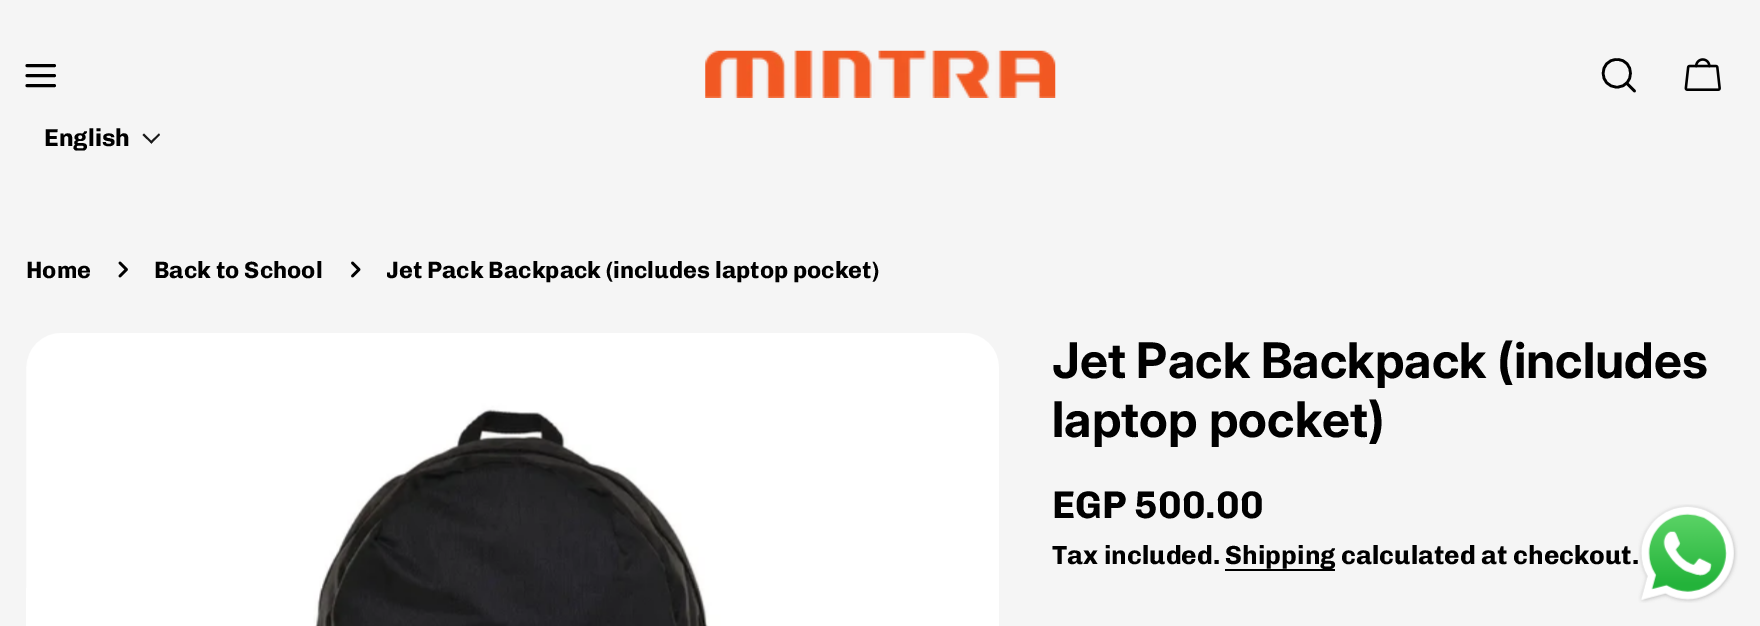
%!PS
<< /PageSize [1760 626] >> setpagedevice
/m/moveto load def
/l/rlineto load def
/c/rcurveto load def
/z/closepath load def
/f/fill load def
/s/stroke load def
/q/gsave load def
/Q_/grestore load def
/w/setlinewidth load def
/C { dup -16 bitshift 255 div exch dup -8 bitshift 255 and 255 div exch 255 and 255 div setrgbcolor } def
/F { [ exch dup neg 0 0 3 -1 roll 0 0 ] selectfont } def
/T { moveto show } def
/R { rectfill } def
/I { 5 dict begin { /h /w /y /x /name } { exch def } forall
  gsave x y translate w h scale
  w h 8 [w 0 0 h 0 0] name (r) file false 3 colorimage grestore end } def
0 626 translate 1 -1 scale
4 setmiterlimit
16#F5F5F5 C
0 0 1760 626 R
16#000000 C
3 w
1 setlinecap
1 setlinejoin
27 75.5 m 27.5 0 l 27 65.5 m 27.5 0 l 27 85.5 m 27.5 0 l s
(1.rgb) 705 50 351 48 I
2.6 w
1617 87 m 18 0 18 -27.5 0 -27.5 c -18.5 0 -18.5 27.5 0 27.5 c z 1626.5 83 m 8 8 l s
(2.rgb) 1684 58 37 33 I
/Chivo-Bold 24.5 F
(English) 44 146 T
16#191919 C
159 133.5 m 1 1.5 l -8.5 8.5 l -1.5 -1.5 l z f
144 133.5 m 8.5 8.5 l -1 1.5 l -9 -8.5 l z f
/Chivo-Bold 23.6 F
16#000000 C
(Home) 26 278 T
120 263 m 6.5 6.5 l -6.5 6.5 l s
(Back to School) 154 278 T
352.5 263 m 6.5 6.5 l -6.5 6.5 l s
q
387 249 493 42 rectclip
(Jet Pack Backpack \(includes laptop pocket\)) 386 278 T
Q_
(3.rgb) 26 333 973 293 I
/Inter-Bold 49 F
(Jet Pack Backpack \(includes) 1052 378 T
(laptop pocket\)) 1052 437 T
/Chivo-Bold 38.5 F
(EGP 500.00) 1052 518 T
/Chivo-Bold 26.25 F
(Tax included. Shipping calculated at checkout.) 1052 564 T
1225 569 110 2 R
(4.rgb) 1638 504 100 99 I
showpage
